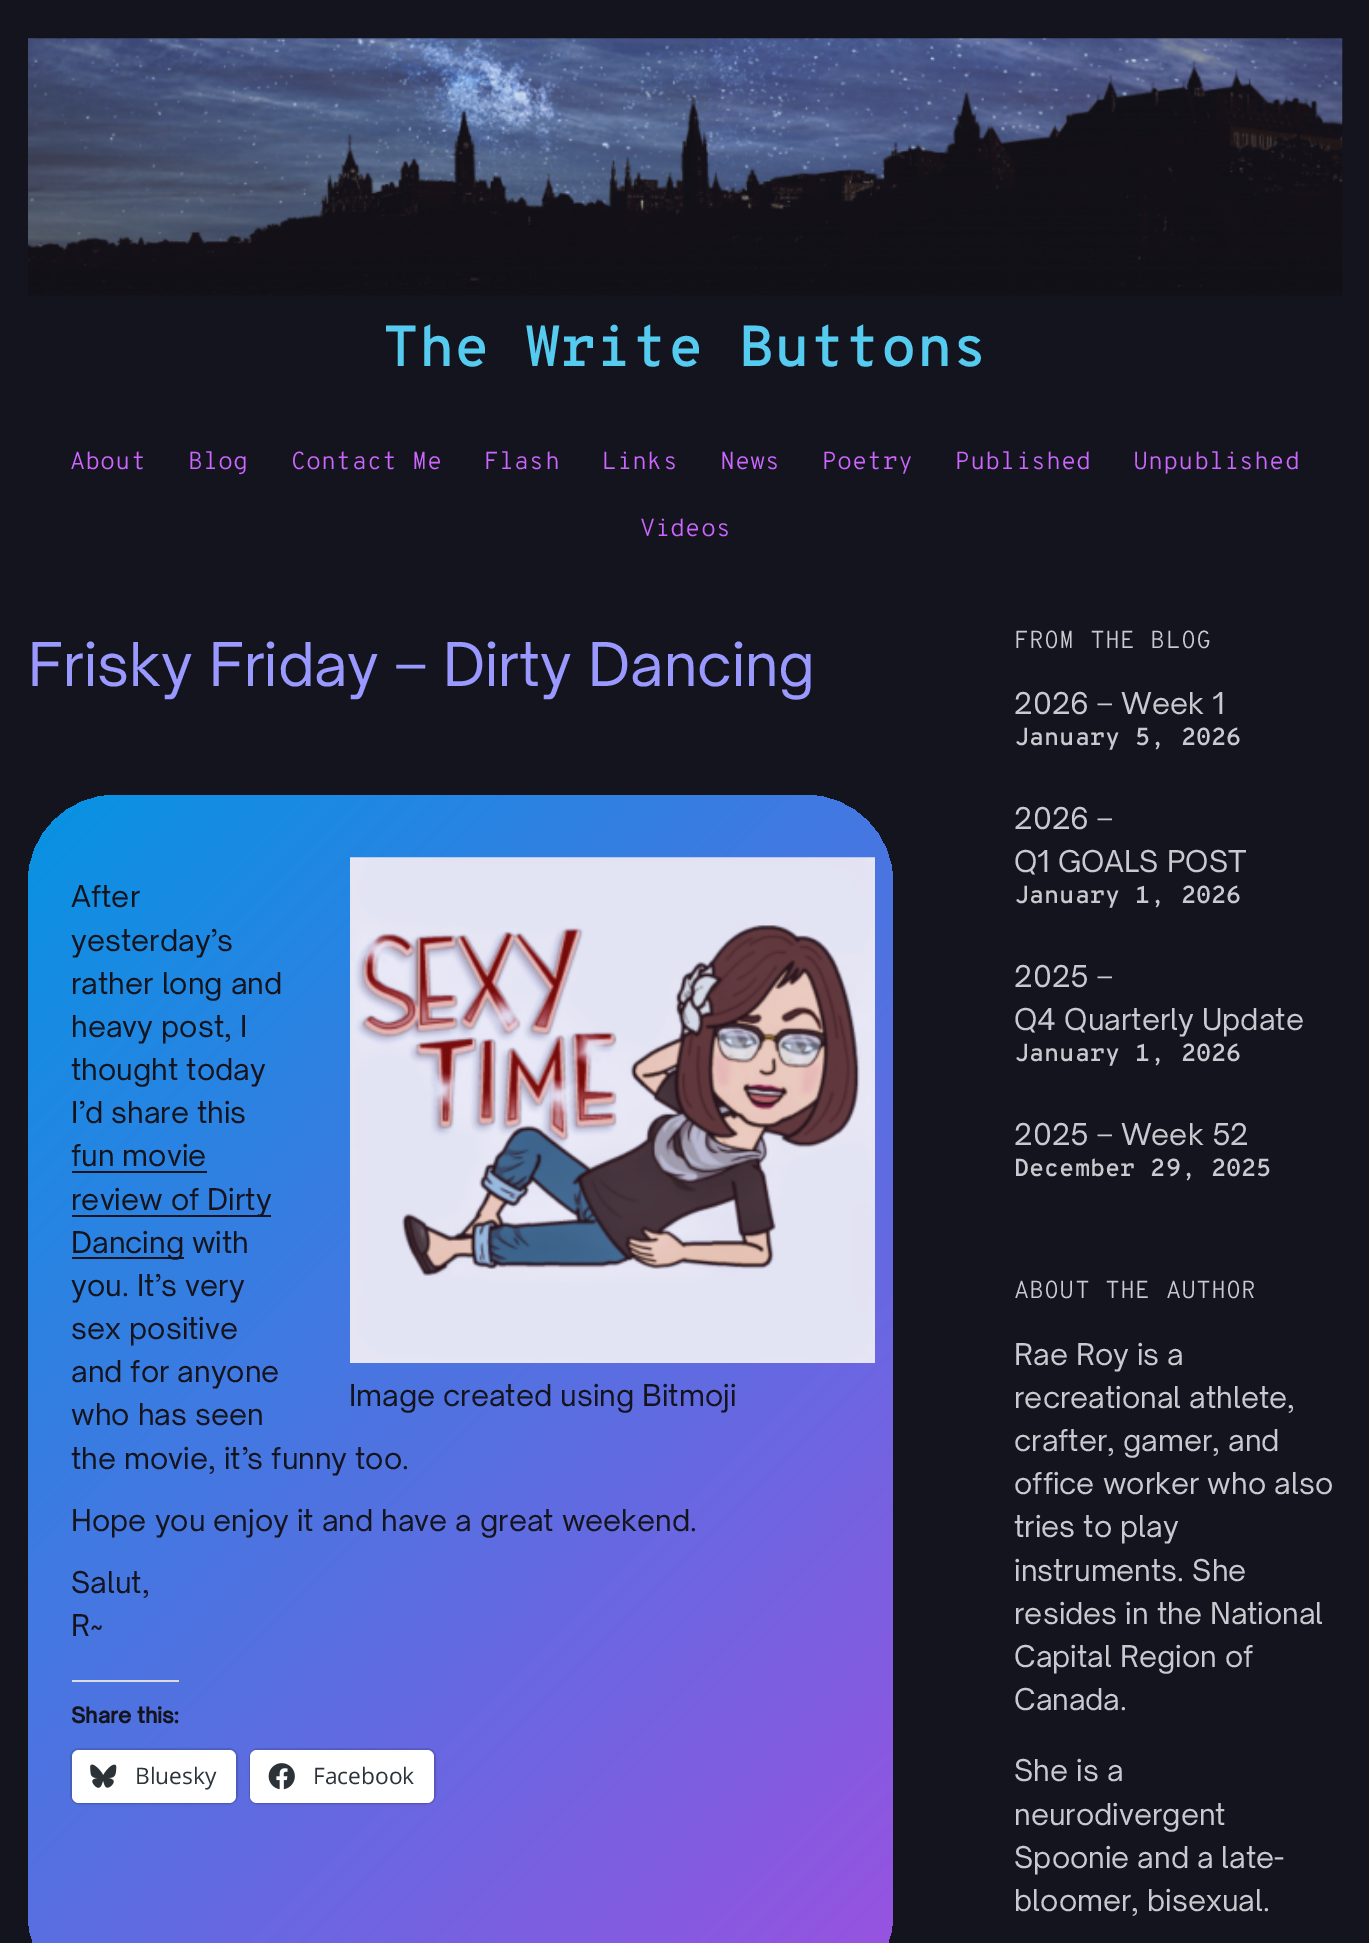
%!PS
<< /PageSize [1369 1943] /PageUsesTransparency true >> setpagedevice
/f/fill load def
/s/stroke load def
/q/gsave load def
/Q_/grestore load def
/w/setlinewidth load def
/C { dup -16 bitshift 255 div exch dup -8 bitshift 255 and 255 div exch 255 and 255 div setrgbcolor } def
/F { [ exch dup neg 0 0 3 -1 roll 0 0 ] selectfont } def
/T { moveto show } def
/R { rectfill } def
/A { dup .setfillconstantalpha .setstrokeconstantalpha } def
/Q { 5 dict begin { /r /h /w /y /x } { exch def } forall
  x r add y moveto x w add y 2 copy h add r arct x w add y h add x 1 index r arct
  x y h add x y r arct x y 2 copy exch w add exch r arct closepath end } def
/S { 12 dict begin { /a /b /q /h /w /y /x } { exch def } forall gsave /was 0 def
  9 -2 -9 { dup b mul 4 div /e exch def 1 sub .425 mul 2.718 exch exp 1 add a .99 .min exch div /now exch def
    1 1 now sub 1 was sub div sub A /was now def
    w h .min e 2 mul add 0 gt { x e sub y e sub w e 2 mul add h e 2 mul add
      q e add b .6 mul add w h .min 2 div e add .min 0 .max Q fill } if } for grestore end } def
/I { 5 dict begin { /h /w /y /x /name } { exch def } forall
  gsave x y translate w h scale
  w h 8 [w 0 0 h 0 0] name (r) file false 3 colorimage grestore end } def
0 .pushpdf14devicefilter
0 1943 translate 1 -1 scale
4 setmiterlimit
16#14141F C
0 0 1369 1943 R
(1.rgb) 28 38 1315 258 I
/OverpassMono-SemiBold 57.75 F
16#56CBF0 C
(The Write Buttons) 383 366 T
/OverpassMono-Light 24.6 F
16#CC66FF C
(About) 70 469 T
(Blog) 188 469 T
(Contact Me) 291 469 T
(Flash) 484 469 T
(Links) 602 469 T
(News) 720 469 T
(Poetry) 822 469 T
(Published) 955 469 T
(Unpublished) 1133 469 T
(Videos) 640 536 T
/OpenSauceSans-Regular 57.75 F
16#9999FF C
(Frisky Friday – Dirty Dancing) 28 686 T
q 28 795 865 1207 88 Q clip newpath
<< /ShadingType 2 /ColorSpace /DeviceRGB /Coords [-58 880 978 1916] /Extend [true true] /Function << /FunctionType 2 /Domain [0 1] /C0 [.024 .576 .89] /C1 [.608 .318 .878] /N 1 >> >> shfill Q_
/OpenSauceSans-Regular 28.75 F
16#14141F C
(After) 71 907 T
(yesterday’s) 71 951 T
(rather long and) 71 994 T
(heavy post, I) 71 1037 T
(thought today) 71 1080 T
(I’d share this) 71 1123 T
(fun movie) 71 1166 T
72 1171 135 2 R
72 1215 199 2 R
(review of Dirty) 71 1210 T
72 1257 112 2 R
(Dancing with) 71 1253 T
(you. It’s very) 71 1296 T
(sex positive) 71 1339 T
(and for anyone) 71 1382 T
(who has seen) 71 1425 T
(the movie, it’s funny too.) 71 1469 T
(2.rgb) 350 857 525 506 I
(Image created using Bitmoji) 349 1406 T
(Hope you enjoy it and have a great weekend.) 71 1531 T
(Salut,) 71 1593 T
(R~) 71 1636 T
16#DCDCDE C
72 1680 107 2 R
/OpenSauceSans-Bold 21 F
16#14141F C
(Share this:) 71 1723 T
0.12 A
16#000000 C
2 w
71 1749 166 54 8 Q s
1 A
72 1752 164 52 7 2 .12 S
16#FFFFFF C
72 1750 164 53 7 Q f
(3.rgb) 90 1764 27 24 I
/OpenSans-Regular 22.75 F
16#2C3338 C
(Bluesky) 135 1784 T
0.12 A
16#000000 C
250 1749 185 54 8 Q s
1 A
250 1752 184 52 7 2 .12 S
16#FFFFFF C
250 1750 184 53 7 Q f
(4.rgb) 268 1763 27 27 I
16#2C3338 C
(Facebook) 313 1784 T
/OverpassMono-Light 24.6 F
16#CAC9CF C
(FROM THE BLOG) 1014 648 T
/OpenSauceSans-Regular 28.75 F
(2026 – Week 1) 1014 714 T
/OverpassMono-SemiBold 24.6 F
(January 5, 2026) 1014 745 T
/OpenSauceSans-Regular 28.75 F
(2026 –) 1014 829 T
(Q1 GOALS POST) 1014 872 T
/OverpassMono-SemiBold 24.6 F
(January 1, 2026) 1014 903 T
/OpenSauceSans-Regular 28.75 F
(2025 –) 1014 987 T
(Q4 Quarterly Update) 1014 1030 T
/OverpassMono-SemiBold 24.6 F
(January 1, 2026) 1014 1061 T
/OpenSauceSans-Regular 28.75 F
(2025 – Week 52) 1014 1145 T
/OverpassMono-SemiBold 24.6 F
(December 29, 2025) 1014 1176 T
/OverpassMono-Light 24.6 F
(ABOUT THE AUTHOR) 1014 1298 T
/OpenSauceSans-Regular 28.75 F
(Rae Roy is a) 1014 1365 T
(recreational athlete,) 1014 1408 T
(crafter, gamer, and) 1014 1451 T
(office worker who also) 1014 1494 T
(tries to play) 1014 1537 T
(instruments. She) 1014 1581 T
(resides in the National) 1014 1624 T
(Capital Region of) 1014 1667 T
(Canada.) 1014 1710 T
(She is a) 1014 1781 T
(neurodivergent) 1014 1825 T
(Spoonie and a late-) 1014 1868 T
(bloomer, bisexual.) 1014 1911 T
.poppdf14devicefilter showpage
